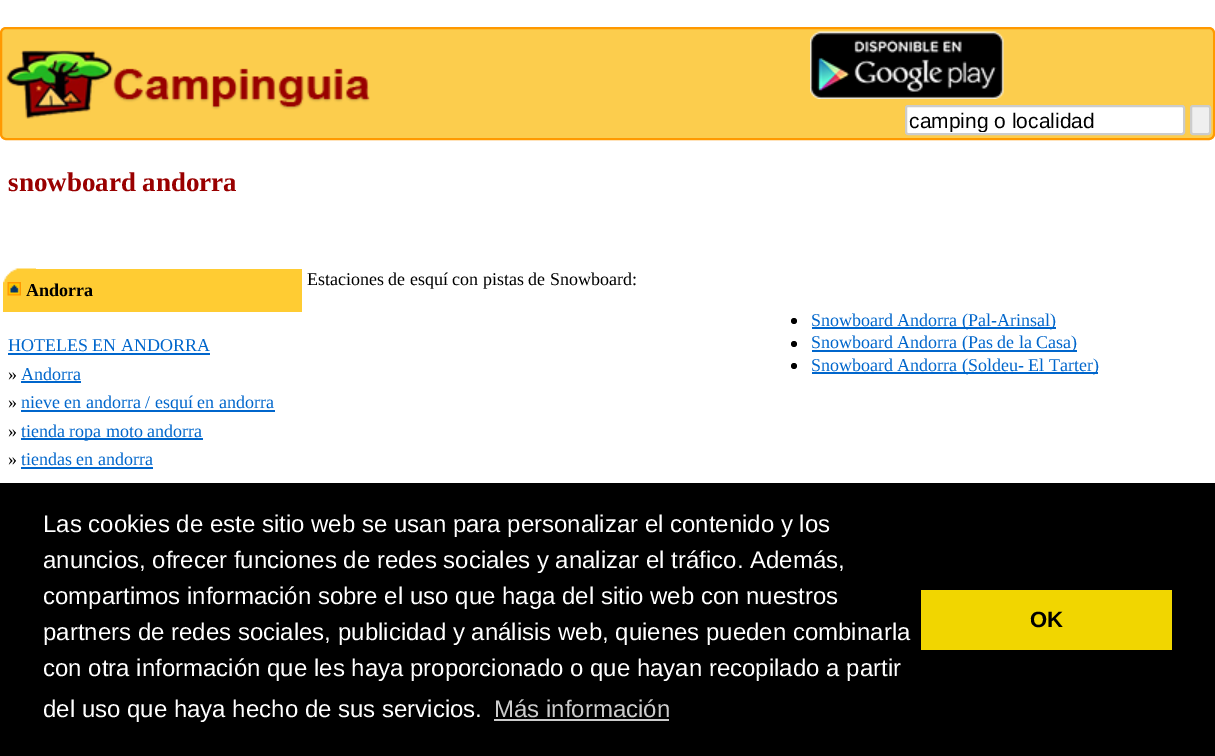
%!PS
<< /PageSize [1215 756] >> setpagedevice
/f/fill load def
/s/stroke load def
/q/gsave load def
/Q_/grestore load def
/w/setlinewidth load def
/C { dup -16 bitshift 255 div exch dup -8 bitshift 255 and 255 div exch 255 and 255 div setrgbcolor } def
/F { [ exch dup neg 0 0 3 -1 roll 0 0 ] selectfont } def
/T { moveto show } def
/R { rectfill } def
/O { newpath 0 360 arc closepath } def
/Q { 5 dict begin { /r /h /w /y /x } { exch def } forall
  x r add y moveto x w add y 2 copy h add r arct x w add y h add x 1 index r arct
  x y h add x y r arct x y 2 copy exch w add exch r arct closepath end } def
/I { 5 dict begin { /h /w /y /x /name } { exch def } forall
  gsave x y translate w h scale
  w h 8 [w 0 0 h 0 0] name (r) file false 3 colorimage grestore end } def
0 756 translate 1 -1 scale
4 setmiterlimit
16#FFFFFF C
0 0 1215 756 R
16#FCCD4D C
1 28 1213 111 5 Q q f Q_
16#FF9900 C
2 w
s
(1.rgb) 5 50 365 69 I
(2.rgb) 810 31 194 68 I
16#FFFFFF C
906 106 278 28 2 Q q f Q_
16#CCCCCC C
s
q
909 108 272 24 rectclip
/LiberationSans-Regular 21 F
16#000000 C
(camping o localidad) 909 128 T
Q_
16#EFEFEF C
1191 106 19 28 2 Q q f Q_
16#CCCCCC C
s
/LiberationSerif-Bold 27 F
16#990000 C
(snowboard andorra) 8 191 T
16#FFCC33 C
3 269 299 43 R
(3.rgb) 3 268 33 15 I
(4.rgb) 7 282 14 14 I
/LiberationSerif-Bold 18 F
16#000000 C
(Andorra) 26 296 T
/LiberationSerif-Regular 18 F
16#0066CC C
(HOTELES EN ANDORRA) 8 351 T
8 353 202 2 R
16#000000 C
(») 8 380 T
16#0066CC C
(Andorra) 21 380 T
21 381 60 2 R
16#000000 C
(») 8 408 T
16#0066CC C
21 410 254 2 R
(nieve en andorra / esquí en andorra) 21 408 T
16#000000 C
(») 8 437 T
16#0066CC C
21 438 182 2 R
(tienda ropa moto andorra) 21 437 T
16#000000 C
(») 8 465 T
16#0066CC C
(tiendas en andorra) 21 465 T
21 467 132 2 R
16#000000 C
(Estaciones de esquí con pistas de Snowboard:) 307 285 T
794 321 3 O f
16#0066CC C
812 327 244 2 R
(Snowboard Andorra \(Pal-Arinsal\)) 811 326 T
16#000000 C
794 344 3 O f
16#0066CC C
812 350 265 2 R
(Snowboard Andorra \(Pas de la Casa\)) 811 348 T
16#000000 C
794 366 3 O f
16#0066CC C
812 372 286 2 R
(Snowboard Andorra \(Soldeu- El Tarter\)) 811 371 T
16#000000 C
0 483 1215 273 R
/LiberationSans-Regular 24 F
16#FFFFFF C
(Las cookies de este sitio web se usan para personalizar el contenido y los) 43 532 T
(anuncios, ofrecer funciones de redes sociales y analizar el tráfico. Además,) 43 568 T
(compartimos información sobre el uso que haga del sitio web con nuestros) 43 604 T
(partners de redes sociales, publicidad y análisis web, quienes pueden combinarla) 43 640 T
(con otra información que les haya proporcionado o que hayan recopilado a partir) 43 676 T
(del uso que haya hecho de sus servicios.) 43 717 T
16#CCCCCC C
(Más información) 494 717 T
494 719 175 2 R
16#F1D600 C
921 590 251 60 R
/LiberationSans-Bold 22 F
16#000000 C
(OK) 1030 627 T
showpage
